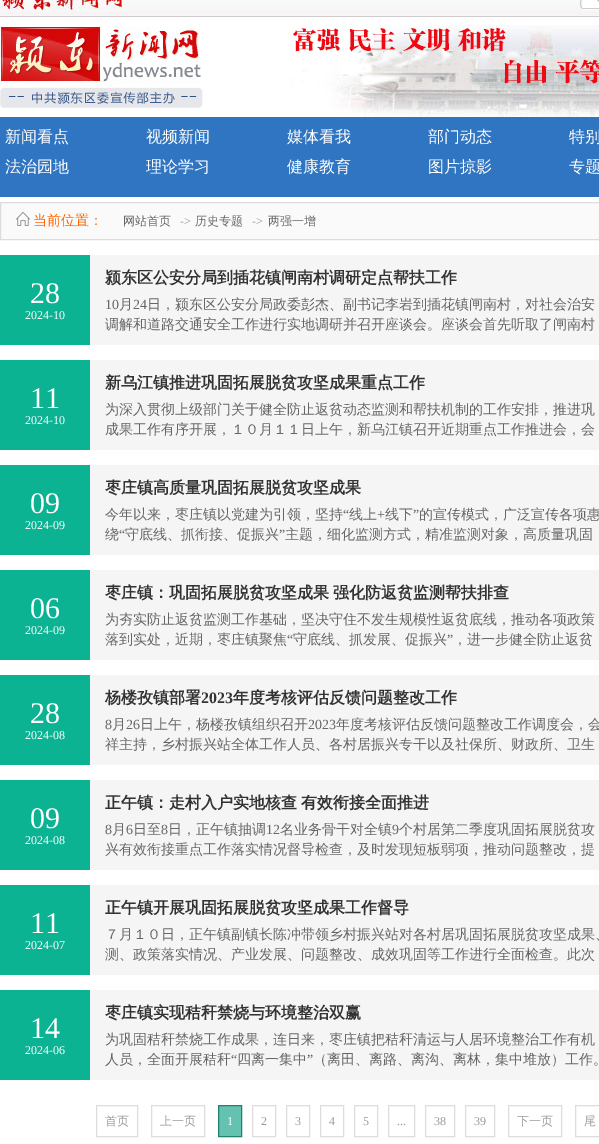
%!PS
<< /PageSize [599 1144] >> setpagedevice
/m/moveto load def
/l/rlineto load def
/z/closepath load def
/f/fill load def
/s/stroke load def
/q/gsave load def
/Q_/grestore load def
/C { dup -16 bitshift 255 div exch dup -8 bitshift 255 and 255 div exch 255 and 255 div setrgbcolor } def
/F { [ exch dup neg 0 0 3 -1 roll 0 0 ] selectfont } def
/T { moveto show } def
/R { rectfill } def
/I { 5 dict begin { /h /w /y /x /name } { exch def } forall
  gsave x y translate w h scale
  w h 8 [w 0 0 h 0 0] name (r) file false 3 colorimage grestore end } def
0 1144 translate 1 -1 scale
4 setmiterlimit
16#FFFFFF C
0 0 599 1144 R
(1.rgb) 0 0 599 17 I
(2.rgb) 0 0 125 11 I
(3.rgb) 580 0 19 10 I
(4.rgb) 289 25 310 92 I
(5.rgb) 0 27 203 81 I
16#3075C2 C
0 117 599 80 R
/WenQuanYiZenHei-Medium 16 F
16#FFFFFF C
(新闻看点) 5 142 T
(视频新闻) 146 142 T
(媒体看我) 287 142 T
(部门动态) 428 142 T
(特别) 569 142 T
(法治园地) 5 172 T
(理论学习) 146 172 T
(健康教育) 287 172 T
(图片掠影) 428 172 T
(专题) 569 172 T
16#FAFAFA C
.5 202.5 m 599 0 l 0 37 l -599 0 l z q f Q_
16#DDDDDD C
s
(6.rgb) 16 212 14 14 I
/WenQuanYiZenHei-Medium 14 F
16#FF6600 C
(当前位置：) 33 225 T
/WenQuanYiZenHei-Medium 12 F
16#666666 C
(网站首页) 123 225 T
/LiberationSerif-Regular 12 F
16#999999 C
(->) 180 225 T
/WenQuanYiZenHei-Medium 12 F
16#666666 C
(历史专题) 195 225 T
/LiberationSerif-Regular 12 F
16#999999 C
(->) 252 225 T
/WenQuanYiZenHei-Medium 12 F
16#666666 C
(两强一增) 268 225 T
16#F5F5F5 C
90 255 509 90 R
16#0BB393 C
0 255 90 90 R
/LiberationSerif-Regular 30 F
16#FFFFFF C
(28) 30 303 T
/LiberationSerif-Regular 12 F
(2024-10) 25 319 T
/WenQuanYiZenHei-Bold 16 F
16#333333 C
(颍东区公安分局到插花镇闸南村调研定点帮扶工作) 105 283 T
/LiberationSerif-Regular 14 F
16#666666 C
(10) 105 309 T
/WenQuanYiZenHei-Medium 14 F
(月) 119 309 T
/LiberationSerif-Regular 14 F
(24) 133 309 T
/WenQuanYiZenHei-Medium 14 F
(日，颍东区公安分局政委彭杰、副书记李岩到插花镇闸南村，对社会治安) 147 309 T
(调解和道路交通安全工作进行实地调研并召开座谈会。座谈会首先听取了闸南村) 105 329 T
16#F5F5F5 C
90 360 509 90 R
16#0BB393 C
0 360 90 90 R
/LiberationSerif-Regular 30 F
16#FFFFFF C
(11) 30 408 T
/LiberationSerif-Regular 12 F
(2024-10) 25 424 T
/WenQuanYiZenHei-Bold 16 F
16#333333 C
(新乌江镇推进巩固拓展脱贫攻坚成果重点工作) 105 388 T
/WenQuanYiZenHei-Medium 14 F
16#666666 C
(为深入贯彻上级部门关于健全防止返贫动态监测和帮扶机制的工作安排，推进巩) 105 414 T
(成果工作有序开展，１０月１１日上午，新乌江镇召开近期重点工作推进会，会) 105 434 T
16#F5F5F5 C
90 465 509 90 R
16#0BB393 C
0 465 90 90 R
/LiberationSerif-Regular 30 F
16#FFFFFF C
(09) 30 513 T
/LiberationSerif-Regular 12 F
(2024-09) 25 529 T
/WenQuanYiZenHei-Bold 16 F
16#333333 C
(枣庄镇高质量巩固拓展脱贫攻坚成果) 105 493 T
/WenQuanYiZenHei-Medium 14 F
16#666666 C
(今年以来，枣庄镇以党建为引领，坚持) 105 519 T
/LiberationSerif-Regular 14 F
(“) 343 519 T
/WenQuanYiZenHei-Medium 14 F
(线上) 349 519 T
/LiberationSerif-Regular 14 F
(+) 377 519 T
/WenQuanYiZenHei-Medium 14 F
(线下) 385 519 T
/LiberationSerif-Regular 14 F
(”) 413 519 T
/WenQuanYiZenHei-Medium 14 F
(的宣传模式，广泛宣传各项惠) 419 519 T
(绕) 105 539 T
/LiberationSerif-Regular 14 F
(“) 119 539 T
/WenQuanYiZenHei-Medium 14 F
(守底线、抓衔接、促振兴) 125 539 T
/LiberationSerif-Regular 14 F
(”) 279 539 T
/WenQuanYiZenHei-Medium 14 F
(主题，细化监测方式，精准监测对象，高质量巩固) 285 539 T
16#F5F5F5 C
90 570 509 90 R
16#0BB393 C
0 570 90 90 R
/LiberationSerif-Regular 30 F
16#FFFFFF C
(06) 30 618 T
/LiberationSerif-Regular 12 F
(2024-09) 25 634 T
/WenQuanYiZenHei-Bold 16 F
16#333333 C
105 598 m -1 0 32 (枣庄镇：巩固拓展脱贫攻坚成果 强化防返贫监测帮扶排查) widthshow
/WenQuanYiZenHei-Medium 14 F
16#666666 C
(为夯实防止返贫监测工作基础，坚决守住不发生规模性返贫底线，推动各项政策) 105 624 T
(落到实处，近期，枣庄镇聚焦) 105 644 T
/LiberationSerif-Regular 14 F
(“) 287 644 T
/WenQuanYiZenHei-Medium 14 F
(守底线、抓发展、促振兴) 293 644 T
/LiberationSerif-Regular 14 F
(”) 447 644 T
/WenQuanYiZenHei-Medium 14 F
(，进一步健全防止返贫) 453 644 T
16#F5F5F5 C
90 675 509 90 R
16#0BB393 C
0 675 90 90 R
/LiberationSerif-Regular 30 F
16#FFFFFF C
(28) 30 723 T
/LiberationSerif-Regular 12 F
(2024-08) 25 739 T
/WenQuanYiZenHei-Bold 16 F
16#333333 C
(杨楼孜镇部署) 105 703 T
/LiberationSerif-Bold 16 F
(2023) 201 703 T
/WenQuanYiZenHei-Bold 16 F
(年度考核评估反馈问题整改工作) 233 703 T
/LiberationSerif-Regular 14 F
16#666666 C
(8) 105 729 T
/WenQuanYiZenHei-Medium 14 F
(月) 112 729 T
/LiberationSerif-Regular 14 F
(26) 126 729 T
/WenQuanYiZenHei-Medium 14 F
(日上午，杨楼孜镇组织召开) 140 729 T
/LiberationSerif-Regular 14 F
(2023) 308 729 T
/WenQuanYiZenHei-Medium 14 F
(年度考核评估反馈问题整改工作调度会，会) 336 729 T
(祥主持，乡村振兴站全体工作人员、各村居振兴专干以及社保所、财政所、卫生) 105 749 T
16#F5F5F5 C
90 780 509 90 R
16#0BB393 C
0 780 90 90 R
/LiberationSerif-Regular 30 F
16#FFFFFF C
(09) 30 828 T
/LiberationSerif-Regular 12 F
(2024-08) 25 844 T
/WenQuanYiZenHei-Bold 16 F
16#333333 C
105 808 m -1 0 32 (正午镇：走村入户实地核查 有效衔接全面推进) widthshow
/LiberationSerif-Regular 14 F
16#666666 C
(8) 105 834 T
/WenQuanYiZenHei-Medium 14 F
(月) 112 834 T
/LiberationSerif-Regular 14 F
(6) 126 834 T
/WenQuanYiZenHei-Medium 14 F
(日至) 133 834 T
/LiberationSerif-Regular 14 F
(8) 161 834 T
/WenQuanYiZenHei-Medium 14 F
(日，正午镇抽调) 168 834 T
/LiberationSerif-Regular 14 F
(12) 266 834 T
/WenQuanYiZenHei-Medium 14 F
(名业务骨干对全镇) 280 834 T
/LiberationSerif-Regular 14 F
(9) 392 834 T
/WenQuanYiZenHei-Medium 14 F
(个村居第二季度巩固拓展脱贫攻) 399 834 T
(兴有效衔接重点工作落实情况督导检查，及时发现短板弱项，推动问题整改，提) 105 854 T
16#F5F5F5 C
90 885 509 90 R
16#0BB393 C
0 885 90 90 R
/LiberationSerif-Regular 30 F
16#FFFFFF C
(11) 30 933 T
/LiberationSerif-Regular 12 F
(2024-07) 25 949 T
/WenQuanYiZenHei-Bold 16 F
16#333333 C
(正午镇开展巩固拓展脱贫攻坚成果工作督导) 105 913 T
/WenQuanYiZenHei-Medium 14 F
16#666666 C
(７月１０日，正午镇副镇长陈冲带领乡村振兴站对各村居巩固拓展脱贫攻坚成果、) 105 939 T
(测、政策落实情况、产业发展、问题整改、成效巩固等工作进行全面检查。此次) 105 959 T
16#F5F5F5 C
90 990 509 90 R
16#0BB393 C
0 990 90 90 R
/LiberationSerif-Regular 30 F
16#FFFFFF C
(14) 30 1038 T
/LiberationSerif-Regular 12 F
(2024-06) 25 1054 T
/WenQuanYiZenHei-Bold 16 F
16#333333 C
(枣庄镇实现秸秆禁烧与环境整治双赢) 105 1018 T
/WenQuanYiZenHei-Medium 14 F
16#666666 C
(为巩固秸秆禁烧工作成果，连日来，枣庄镇把秸秆清运与人居环境整治工作有机) 105 1044 T
(人员，全面开展秸秆) 105 1064 T
/LiberationSerif-Regular 14 F
(“) 231 1064 T
/WenQuanYiZenHei-Medium 14 F
(四离一集中) 237 1064 T
/LiberationSerif-Regular 14 F
(”) 307 1064 T
/WenQuanYiZenHei-Medium 14 F
(（离田、离路、离沟、离林，集中堆放）工作。) 313 1064 T
16#DDDDDD C
96.5 1105.5 41 31 rectstroke
/WenQuanYiZenHei-Medium 12 F
16#999999 C
(首页) 105 1125 T
16#DDDDDD C
151.5 1105.5 53 31 rectstroke
16#999999 C
(上一页) 160 1125 T
16#64C2B0 C
218.5 1105.5 m 23 0 l 0 31 l -23 0 l z q f Q_
16#21806E C
s
/LiberationSerif-Regular 12 F
16#FFFFFF C
(1) 227 1125 T
16#DDDDDD C
252.5 1105.5 23 31 rectstroke
16#999999 C
(2) 261 1125 T
16#DDDDDD C
286.5 1105.5 23 31 rectstroke
16#999999 C
(3) 295 1125 T
16#DDDDDD C
320.5 1105.5 23 31 rectstroke
16#999999 C
(4) 329 1125 T
16#DDDDDD C
354.5 1105.5 23 31 rectstroke
16#999999 C
(5) 363 1125 T
16#DDDDDD C
388.5 1105.5 26 31 rectstroke
16#999999 C
(...) 397 1125 T
16#DDDDDD C
425.5 1105.5 29 31 rectstroke
16#999999 C
(38) 434 1125 T
16#DDDDDD C
465.5 1105.5 29 31 rectstroke
16#999999 C
(39) 474 1125 T
16#DDDDDD C
508.5 1105.5 53 31 rectstroke
/WenQuanYiZenHei-Medium 12 F
16#999999 C
(下一页) 517 1125 T
16#DDDDDD C
575.5 1105.5 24 31 rectstroke
16#999999 C
(尾) 584 1125 T
showpage
